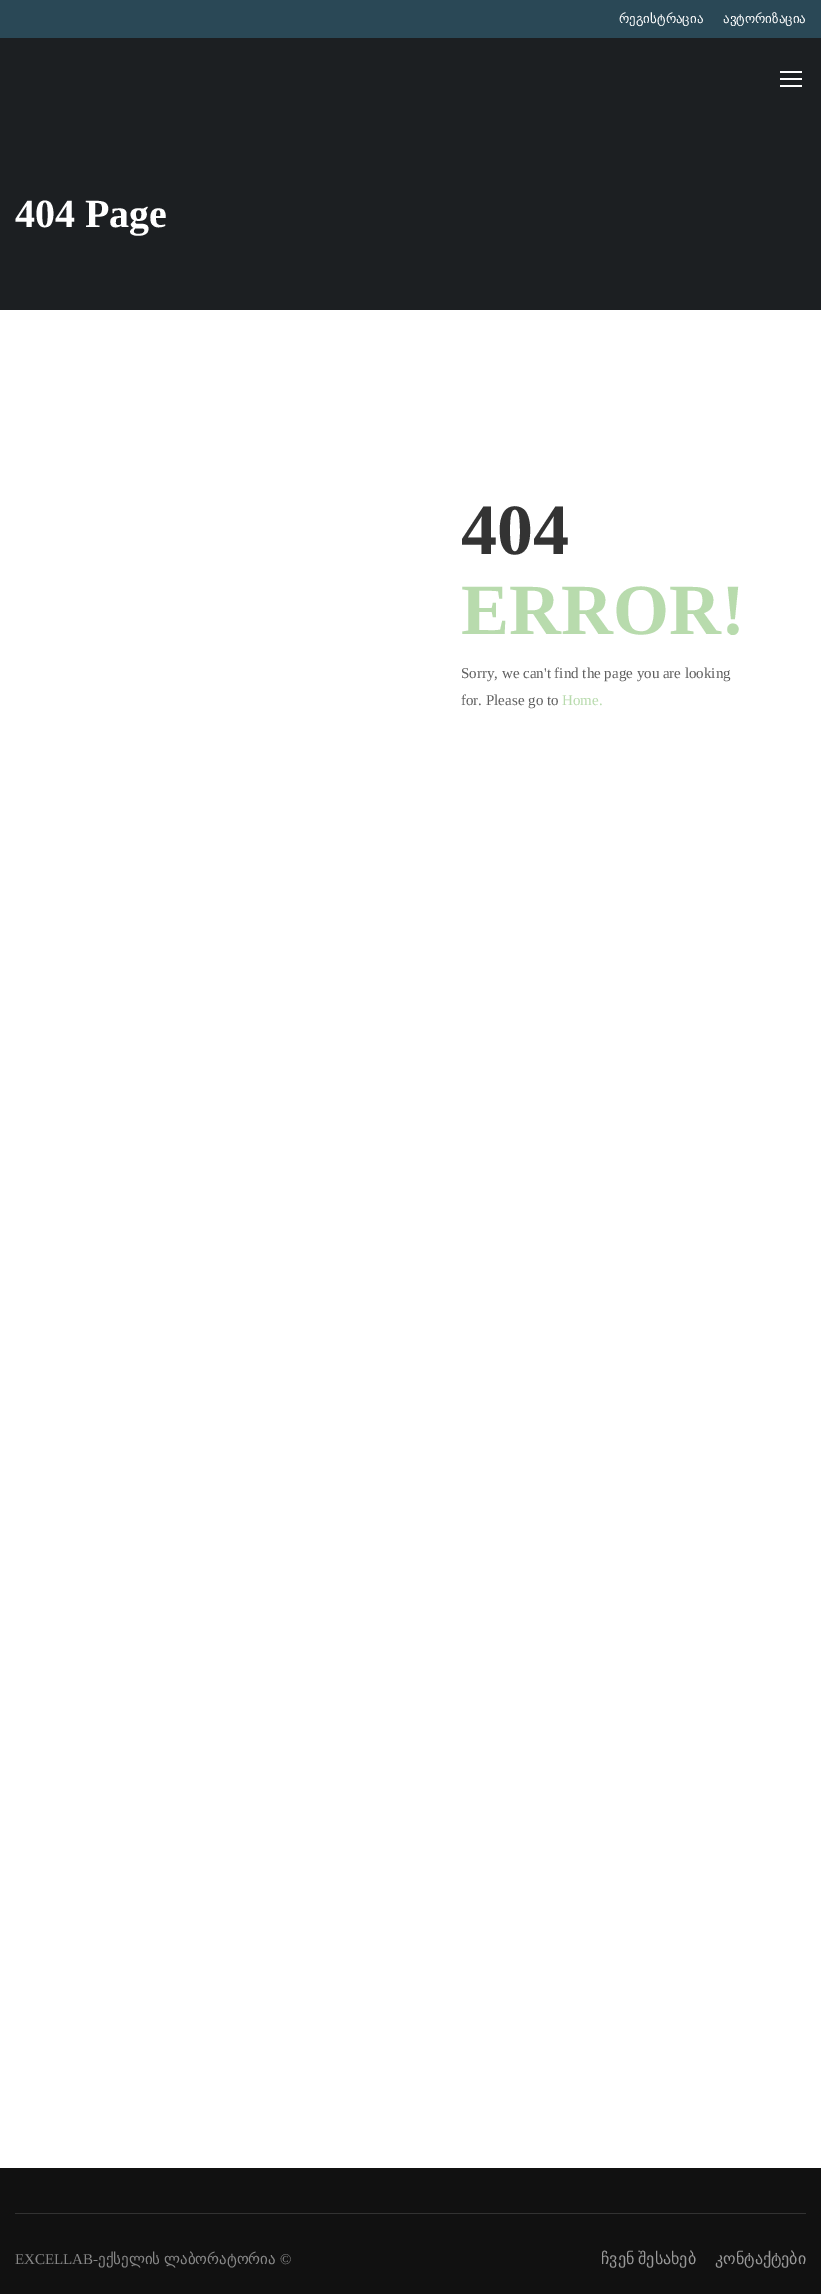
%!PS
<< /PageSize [821 2294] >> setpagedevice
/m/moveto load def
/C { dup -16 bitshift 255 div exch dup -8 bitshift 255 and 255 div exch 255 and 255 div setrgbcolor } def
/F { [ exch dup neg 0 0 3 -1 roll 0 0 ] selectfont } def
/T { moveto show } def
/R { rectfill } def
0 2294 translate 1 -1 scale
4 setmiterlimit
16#FFFFFF C
0 0 821 2294 R
16#2A4856 C
0 0 821 38 R
/DejaVuSans-Regular 13 F
16#FFFFFF C
(რეგისტრაცია) 619 23 T
(ავტორიზაცია) 723 23 T
16#1C1F22 C
0 38 821 272 R
16#FFFFFF C
780 71 22 2 R
780 78 22 2 R
780 85 22 2 R
/LiberationSerif-Bold 40 F
(404 Page) 15 227 T
/LiberationSerif-Bold 72 F
16#333333 C
(404) 461 554 T
16#B8DBAD C
(ERROR!) 461 634 T
/LiberationSerif-Regular 15 F
16#606060 C
(Sorry, we can't find the page you are looking) 461 678 T
(for. Please go to) 461 705 T
16#B8DBAD C
(Home.) 562 705 T
16#111111 C
0 2168 821 126 R
16#323232 C
15 2213 791 1 R
16#878787 C
(EXCELLAB-) 15 2264 T
/DejaVuSans-Regular 15 F
98 2264 m -1 0 32 (ექსელის ლაბორატორია) widthshow
/LiberationSerif-Regular 15 F
(©) 280 2264 T
/DejaVuSans-Regular 16 F
16#999999 C
601 2264 m -1 0 32 (ჩვენ შესახებ) widthshow
(კონტაქტები) 715 2264 T
showpage
